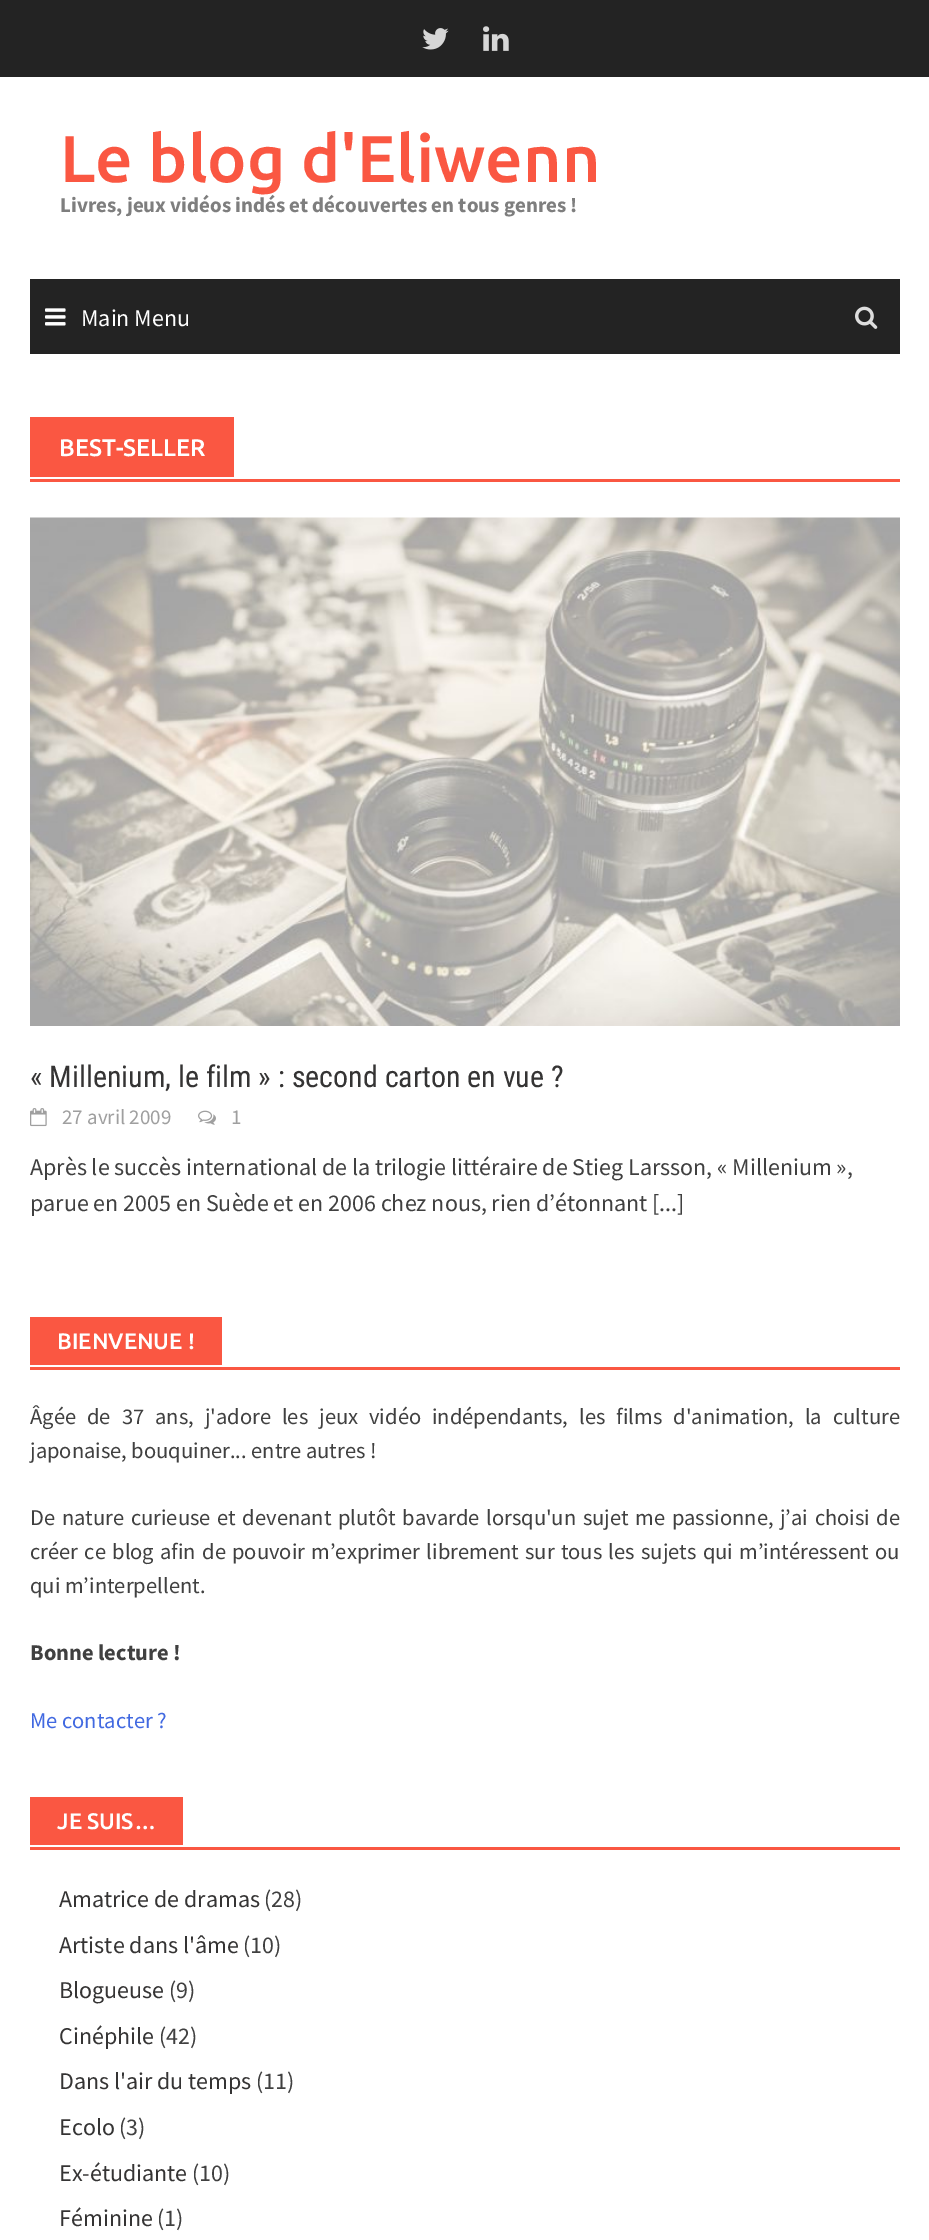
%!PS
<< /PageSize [929 2240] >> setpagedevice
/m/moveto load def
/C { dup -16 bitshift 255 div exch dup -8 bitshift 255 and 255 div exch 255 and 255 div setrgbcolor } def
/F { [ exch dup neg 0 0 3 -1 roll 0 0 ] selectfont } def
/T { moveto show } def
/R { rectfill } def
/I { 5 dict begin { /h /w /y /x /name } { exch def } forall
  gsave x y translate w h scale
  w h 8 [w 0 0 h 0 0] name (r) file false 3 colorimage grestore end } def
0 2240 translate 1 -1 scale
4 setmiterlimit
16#FFFFFF C
0 0 929 2240 R
16#232323 C
0 0 929 77 R
(1.rgb) 422 28 27 22 I
(2.rgb) 483 26 26 25 I
/Ubuntu-Medium 66 F
16#FA5742 C
(Le blog d'Eliwenn) 60 182 T
/SourceSansPro-Bold 21 F
16#7E7E7E C
(Livres, jeux vidéos indés et découvertes en tous genres !) 60 212 T
16#232323 C
30 279 870 75 R
(3.rgb) 45 308 21 18 I
/SourceSansPro-Regular 24 F
16#FFFFFF C
(Main Menu) 81 326 T
(4.rgb) 855 306 23 23 I
16#FA5742 C
30 479 870 3 R
30 417 204 60 R
/Ubuntu-Medium 24 F
16#FFFFFF C
(BEST-SELLER) 59 456 T
(5.rgb) 30 517 870 509 I
/RobotoCondensed-Regular 30 F
16#353434 C
(« Millenium, le film » : second carton en vue ?) 30 1087 T
(6.rgb) 30 1108 17 19 I
/SourceSansPro-Regular 21 F
16#9F9F9F C
(27 avril 2009) 62 1124 T
(7.rgb) 198 1110 18 15 I
(1) 231 1124 T
/SourceSansPro-Regular 24 F
16#404040 C
(Après le succès international de la trilogie littéraire de Stieg Larsson, « Millenium »,) 30 1175 T
(parue en 2005 en Suède et en 2006 chez nous, rien d’étonnant [...]) 30 1211 T
16#FA5742 C
30 1367 870 3 R
30 1317 192 48 R
/Ubuntu-Medium 22.5 F
16#FFFFFF C
(BIENVENUE !) 57 1349 T
/SourceSansPro-Regular 22.5 F
16#404040 C
30 1424 m 6.5 0 32 (Âgée de 37 ans, j'adore les jeux vidéo indépendants, les films d'animation, la culture) widthshow
(japonaise, bouquiner... entre autres !) 30 1458 T
30 1525 m 2.1 0 32 (De nature curieuse et devenant plutôt bavarde lorsqu'un sujet me passionne, j’ai choisi de) widthshow
30 1559 m 1.75 0 32 (créer ce blog afin de pouvoir m’exprimer librement sur tous les sujets qui m’intéressent ou) widthshow
(qui m’interpellent.) 30 1593 T
/SourceSansPro-Bold 22.5 F
(Bonne lecture !) 30 1660 T
/SourceSansPro-Regular 22.5 F
16#4169E1 C
(Me contacter ?) 30 1728 T
16#FA5742 C
30 1847 870 3 R
30 1797 153 48 R
/Ubuntu-Medium 22.5 F
16#FFFFFF C
(JE SUIS…) 57 1829 T
/SourceSansPro-Regular 24 F
16#353434 C
(Amatrice de dramas) 59 1907 T
16#404040 C
(\(28\)) 264 1907 T
16#353434 C
(Artiste dans l'âme) 59 1953 T
16#404040 C
(\(10\)) 243 1953 T
16#353434 C
(Blogueuse) 59 1998 T
16#404040 C
(\(9\)) 169 1998 T
16#353434 C
(Cinéphile) 59 2044 T
16#404040 C
(\(42\)) 159 2044 T
16#353434 C
(Dans l'air du temps) 59 2089 T
16#404040 C
(\(11\)) 256 2089 T
16#353434 C
(Ecolo) 59 2135 T
16#404040 C
(\(3\)) 119 2135 T
16#353434 C
(Ex-étudiante) 59 2181 T
16#404040 C
(\(10\)) 192 2181 T
16#353434 C
(Féminine) 59 2226 T
16#404040 C
(\(1\)) 157 2226 T
showpage
